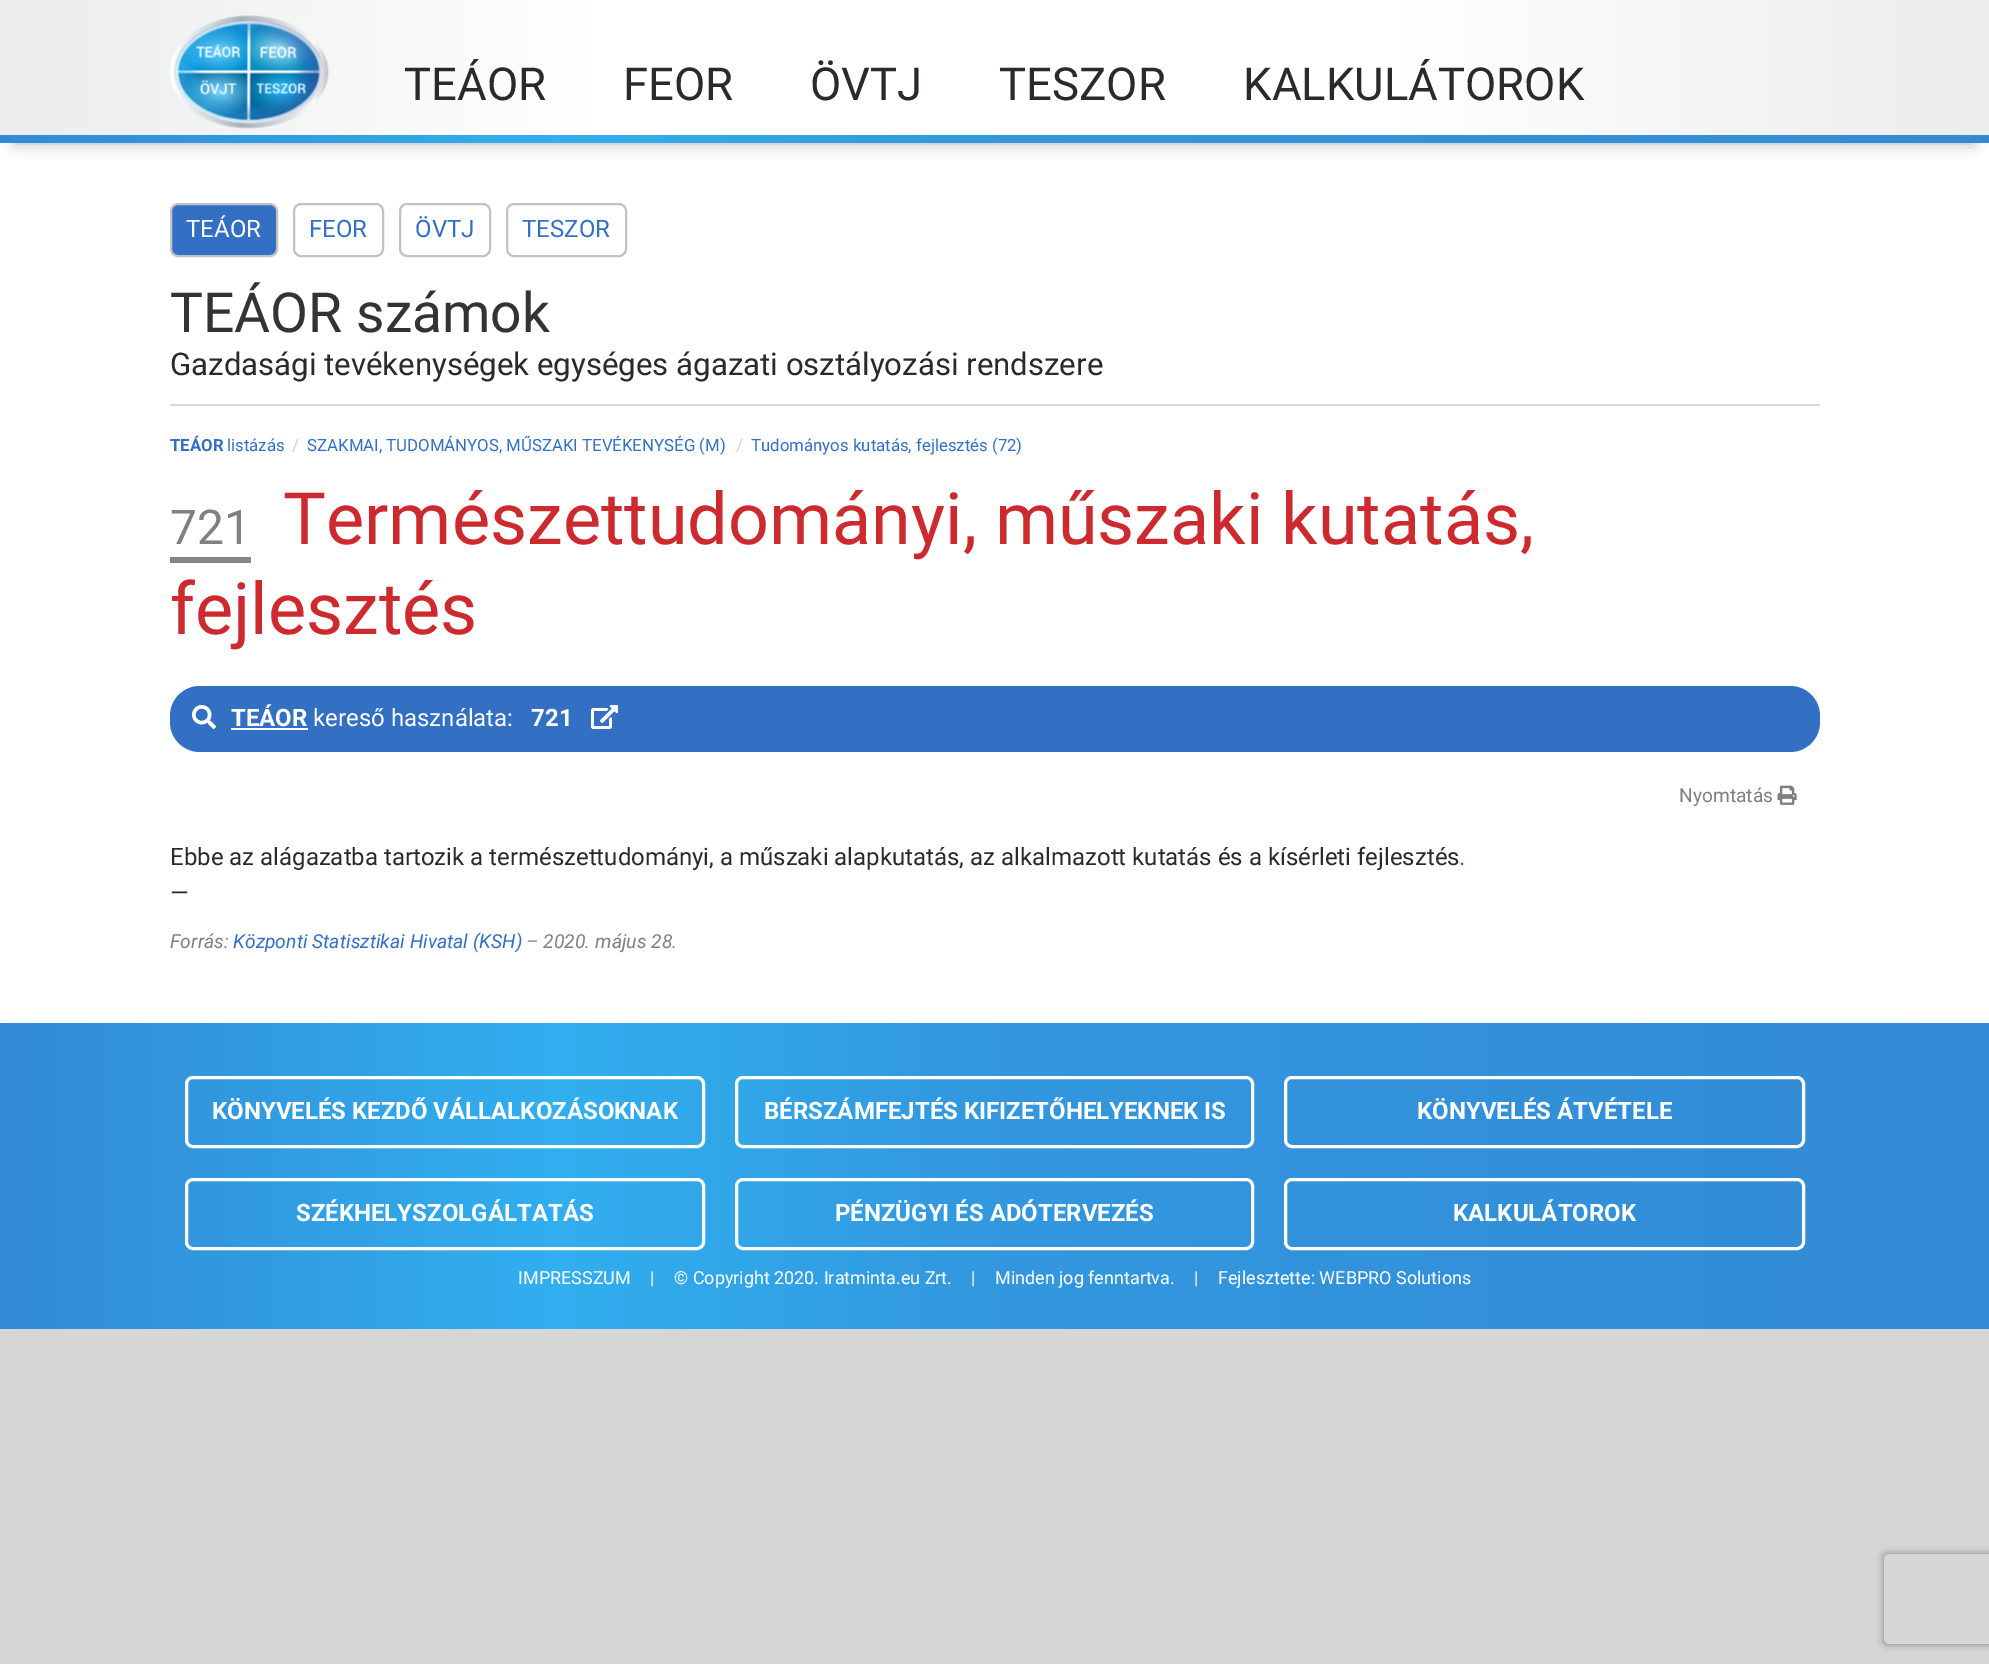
%!PS
<< /PageSize [1989 1664] /PageUsesTransparency true >> setpagedevice
/m/moveto load def
/l/rlineto load def
/c/rcurveto load def
/z/closepath load def
/f/fill load def
/s/stroke load def
/q/gsave load def
/Q_/grestore load def
/w/setlinewidth load def
/C { dup -16 bitshift 255 div exch dup -8 bitshift 255 and 255 div exch 255 and 255 div setrgbcolor } def
/F { [ exch dup neg 0 0 3 -1 roll 0 0 ] selectfont } def
/T { moveto show } def
/R { rectfill } def
/A { dup .setfillconstantalpha .setstrokeconstantalpha } def
/Q { 5 dict begin { /r /h /w /y /x } { exch def } forall
  x r add y moveto x w add y 2 copy h add r arct x w add y h add x 1 index r arct
  x y h add x y r arct x y 2 copy exch w add exch r arct closepath end } def
/S { 12 dict begin { /a /b /q /h /w /y /x } { exch def } forall gsave /was 0 def
  9 -2 -9 { dup b mul 4 div /e exch def 1 sub .425 mul 2.718 exch exp 1 add a .99 .min exch div /now exch def
    1 1 now sub 1 was sub div sub A /was now def
    w h .min e 2 mul add 0 gt { x e sub y e sub w e 2 mul add h e 2 mul add
      q e add b .6 mul add w h .min 2 div e add .min 0 .max Q fill } if } for grestore end } def
/I { 5 dict begin { /h /w /y /x /name } { exch def } forall
  gsave x y translate w h scale
  w h 8 [w 0 0 h 0 0] name (r) file false 3 colorimage grestore end } def
0 .pushpdf14devicefilter
0 1664 translate 1 -1 scale
4 setmiterlimit
16#D7D6D6 C
0 0 1989 1664 R
16#FFFFFF C
0 143 1989 880 R
16#000000 C
15 30 1959 113 0 7.5 .32 S
q 0 0 m 1989 0 l 0 135 l -1989 0 l z clip newpath
<< /ShadingType 2 /ColorSpace /DeviceRGB /Coords [0 71 1989 71] /Extend [true true] /Function << /FunctionType 3 /Domain [0 1] /Functions [<< /FunctionType 2 /Domain [0 1] /C0 [.922 .925 .925] /C1 [1 1 1] /N 1 >> << /FunctionType 2 /Domain [0 1] /C0 [1 1 1] /C1 [1 1 1] /N 1 >> << /FunctionType 2 /Domain [0 1] /C0 [1 1 1] /C1 [.922 .925 .925] /N 1 >>] /Bounds [.3 .7] /Encode [0 1 0 1 0 1] >> >> shfill Q_
(1.rgb) 169 15 160 114 I
/Roboto-Regular 45.5 F
16#2B2A29 C
(TEÁOR) 404 100 T
(FEOR) 623 100 T
(ÖVTJ) 810 100 T
(TESZOR) 999 100 T
(KALKULÁTOROK) 1243 100 T
q 0 135 m 1989 0 l 0 8 l -1989 0 l z clip newpath
<< /ShadingType 2 /ColorSpace /DeviceRGB /Coords [0 139 1989 139] /Extend [true true] /Function << /FunctionType 3 /Domain [0 1] /Functions [<< /FunctionType 2 /Domain [0 1] /C0 [.196 .541 .835] /C1 [.192 .686 .941] /N 1 >> << /FunctionType 2 /Domain [0 1] /C0 [.192 .686 .941] /C1 [.196 .6 .878] /N 1 >> << /FunctionType 2 /Domain [0 1] /C0 [.196 .6 .878] /C1 [.196 .541 .835] /N 1 >>] /Bounds [.28 .48] /Encode [0 1 0 1 0 1] >> >> shfill Q_
16#336FC2 C
171 204 106 52 7 Q q f Q_
16#C2C2C2 C
2 w
s
/Roboto-Regular 24 F
16#FFFFFF C
(TEÁOR) 186 237 T
16#C2C2C2 C
294 204 89 52 7 Q s
16#336FC2 C
(FEOR) 309 237 T
16#C2C2C2 C
400 204 90 52 7 Q s
16#336FC2 C
(ÖVTJ) 415 237 T
16#C2C2C2 C
507 204 119 52 7 Q s
16#336FC2 C
(TESZOR) 522 237 T
/Roboto-Regular 55.25 F
16#333333 C
(TEÁOR számok) 170 332 T
16#D9D9D9 C
170 404 1650 2 R
/Roboto-Regular 31.2 F
16#2B2A29 C
(Gazdasági tevékenységek egységes ágazati osztályozási rendszere) 170 375 T
/Roboto-Bold 16.8 F
16#336FC2 C
(TEÁOR) 170 451 T
/Roboto-Regular 16.8 F
(listázás) 227 451 T
16#CECECE C
(/) 292 451 T
16#336FC2 C
(SZAKMAI, TUDOMÁNYOS, MŰSZAKI TEVÉKENYSÉG \(M\)) 307 451 T
16#CECECE C
(/) 736 451 T
16#336FC2 C
(Tudományos kutatás, fejlesztés \(72\)) 751 451 T
/Roboto-Regular 48 F
16#808080 C
(721) 170 544 T
16#858585 C
170 557 81 6 R
/Roboto-Regular 72 F
16#CD2A30 C
(Természettudományi, műszaki kutatás,) 283 544 T
(fejlesztés) 170 634 T
16#336FC2 C
170 686 1650 66 30 Q f
(2.rgb) 192 705 24 24 I
/Roboto-Bold 24 F
16#FFFFFF C
(TEÁOR) 231 726 T
231 728 77 2 R
/Roboto-Regular 24 F
(kereső használata:) 313 726 T
/Roboto-Bold 24 F
(721) 531 726 T
(3.rgb) 591 705 27 24 I
/Roboto-Regular 19.25 F
16#808080 C
(Nyomtatás) 1679 802 T
(4.rgb) 1777 785 20 20 I
/Roboto-Regular 24 F
16#2B2A29 C
(Ebbe az alágazatba tartozik a természettudományi, a műszaki alapkutatás, az alkalmazott kutatás és a kísérleti fejlesztés) 170 865 T
16#336FC2 C
(.) 1459 865 T
16#2B2A29 C
(—) 170 901 T
/Roboto-Italic 19.25 F
16#808080 C
(Forrás:) 170 948 T
16#336FC2 C
(Központi Statisztikai Hivatal \(KSH\)) 233 948 T
16#808080 C
(– 2020. május 28.) 526 948 T
q 0 1023 m 1989 0 l 0 306 l -1989 0 l z clip newpath
<< /ShadingType 2 /ColorSpace /DeviceRGB /Coords [0 1176 1989 1176] /Extend [true true] /Function << /FunctionType 3 /Domain [0 1] /Functions [<< /FunctionType 2 /Domain [0 1] /C0 [.196 .541 .835] /C1 [.192 .686 .941] /N 1 >> << /FunctionType 2 /Domain [0 1] /C0 [.192 .686 .941] /C1 [.196 .6 .878] /N 1 >> << /FunctionType 2 /Domain [0 1] /C0 [.196 .6 .878] /C1 [.196 .541 .835] /N 1 >>] /Bounds [.28 .48] /Encode [0 1 0 1 0 1] >> >> shfill Q_
16#FFFFFF C
3 w
186.5 1077.5 517 69 6.5 Q s
/Roboto-Bold 24 F
(KÖNYVELÉS KEZDŐ VÁLLALKOZÁSOKNAK) 212 1119 T
736.5 1077.5 516 69 6.5 Q s
(BÉRSZÁMFEJTÉS KIFIZETŐHELYEKNEK IS) 764 1119 T
1285.5 1077.5 518 69 6.5 Q s
(KÖNYVELÉS ÁTVÉTELE) 1417 1119 T
186.5 1179.5 517 69 6.5 Q s
(SZÉKHELYSZOLGÁLTATÁS) 296 1221 T
736.5 1179.5 516 69 6.5 Q s
(PÉNZÜGYI ÉS ADÓTERVEZÉS) 835 1221 T
1285.5 1179.5 518 69 6.5 Q s
(KALKULÁTOROK) 1453 1221 T
/Roboto-Regular 18 F
(IMPRESSZUM) 518 1284 T
(|) 650 1284 T
(© Copyright 2020. Iratminta.eu Zrt.) 674 1284 T
(|) 971 1284 T
(Minden jog fenntartva.) 995 1284 T
(|) 1194 1284 T
(Fejlesztette: WEBPRO Solutions) 1218 1284 T
q
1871 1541 m 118 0 l 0 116 l -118 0 l z 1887 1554 m 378 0 l 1.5 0 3 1.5 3 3 c 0 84 l 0 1.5 -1.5 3 -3 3 c -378 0 l -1.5 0 -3 -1.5 -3 -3 c 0 -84 l 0 -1.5 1.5 -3 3 -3 c z eoclip newpath
16#808080 C
1884 1554 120 90 3 4 1 S
Q_
.poppdf14devicefilter showpage
